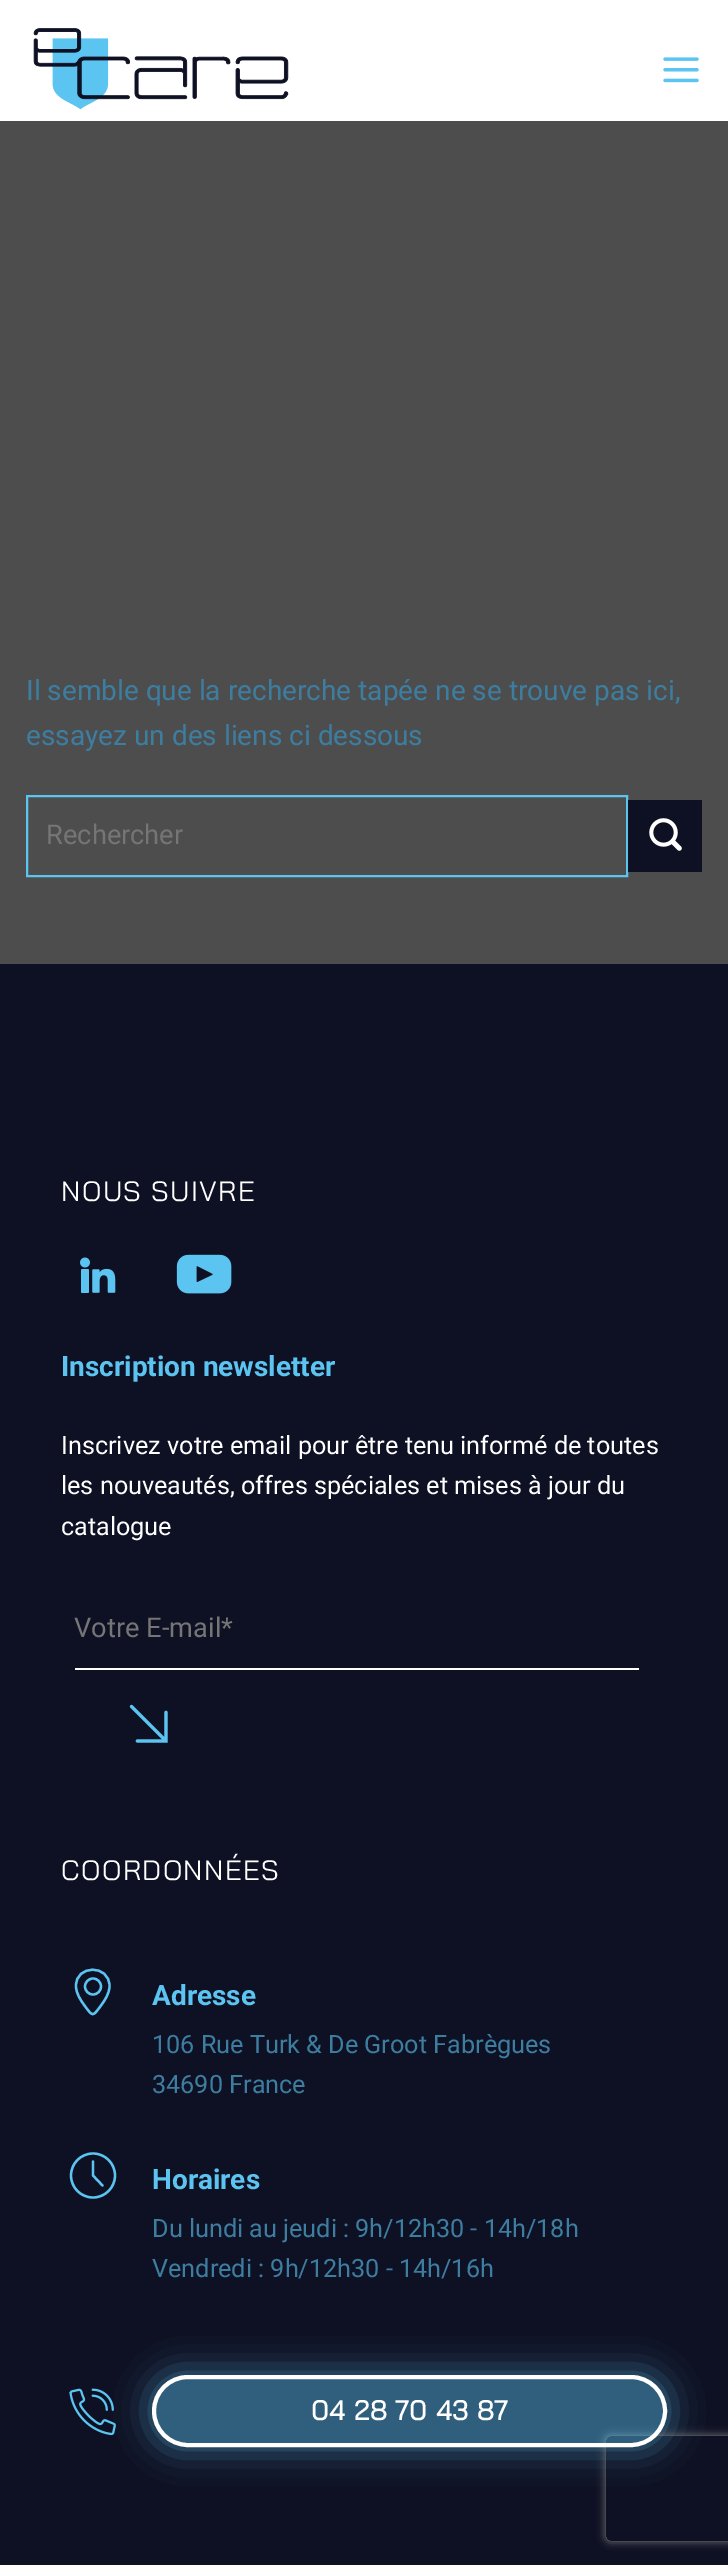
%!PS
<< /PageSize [728 2565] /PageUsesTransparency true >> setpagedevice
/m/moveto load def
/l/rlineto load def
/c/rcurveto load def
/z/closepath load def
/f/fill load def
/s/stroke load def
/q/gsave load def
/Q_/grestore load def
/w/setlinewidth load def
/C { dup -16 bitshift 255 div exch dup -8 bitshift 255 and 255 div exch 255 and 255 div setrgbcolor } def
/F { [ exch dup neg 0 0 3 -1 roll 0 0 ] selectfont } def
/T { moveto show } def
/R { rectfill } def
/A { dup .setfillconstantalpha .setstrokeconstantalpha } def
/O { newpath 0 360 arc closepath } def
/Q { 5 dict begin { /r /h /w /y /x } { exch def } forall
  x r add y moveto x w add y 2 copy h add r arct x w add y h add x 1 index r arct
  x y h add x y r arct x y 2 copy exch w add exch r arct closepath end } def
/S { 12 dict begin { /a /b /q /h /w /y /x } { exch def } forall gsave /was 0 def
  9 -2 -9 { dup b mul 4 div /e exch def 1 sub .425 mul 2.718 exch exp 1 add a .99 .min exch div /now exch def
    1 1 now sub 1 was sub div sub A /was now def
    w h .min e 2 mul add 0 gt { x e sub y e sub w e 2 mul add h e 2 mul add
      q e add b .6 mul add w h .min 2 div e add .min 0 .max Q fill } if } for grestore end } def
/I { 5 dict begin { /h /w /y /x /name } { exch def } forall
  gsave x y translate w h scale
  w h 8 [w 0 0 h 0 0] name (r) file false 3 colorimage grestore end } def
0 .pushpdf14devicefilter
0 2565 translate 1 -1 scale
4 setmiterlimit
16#4D4D4D C
0 0 728 2565 R
16#FFFFFF C
0 0 728 121 R
(1.rgb) 33 28 256 82 I
(2.rgb) 663 57 36 26 I
/Roboto-Regular 28 F
16#3C7DA0 C
(Il semble que la recherche tapée ne se trouve pas ici,) 26 700 T
(essayez un des liens ci dessous) 26 745 T
16#5BC4F1 C
2 w
27 796 600 80 rectstroke
/Roboto-Regular 27.25 F
16#757575 C
(Rechercher) 46 844 T
16#0E1023 C
628 800 74 72 R
(3.rgb) 649 818 33 33 I
0 964 728 1601 R
/BaiJamjuree-Regular 28 F
16#FFFFFF C
61 1201 m 1.4 0 (NOUS SUIVRE) ashow
(4.rgb) 80 1257 36 36 I
(5.rgb) 176 1254 56 40 I
/Roboto-Bold 28 F
16#5BC4F1 C
(Inscription newsletter) 61 1376 T
/Roboto-Regular 25.2 F
16#FFFFFF C
(Inscrivez votre email pour être tenu informé de toutes) 61 1454 T
(les nouveautés, offres spéciales et mises à jour du) 61 1494 T
(catalogue) 61 1535 T
75 1668 564 2 R
/Roboto-Regular 27.25 F
16#757575 C
(Votre E-mail*) 74 1637 T
(6.rgb) 129 1704 39 39 I
/BaiJamjuree-Regular 28 F
16#FFFFFF C
61 1880 m 1.4 0 (COORDONNÉES) ashow
16#5BC4F1 C
2.3 w
1 setlinecap
109.5 1986 m 0 7.5 -4.5 14 -8.5 19.5 c -8.5 11.5 -8 11.5 -16.5 0 c -4 -5.5 -8.5 -12 -8.5 -19.5 c -.5 -21.5 33.5 -22 33.5 0 c z s
0 setlinecap
93 1986.5 8 O s
/Roboto-Bold 28 F
(Adresse) 152 2005 T
/Roboto-Regular 25.2 F
16#3C7DA0 C
(106 Rue Turk & De Groot Fabrègues) 152 2053 T
(34690 France) 152 2093 T
16#5BC4F1 C
93 2175.5 22 O s
1 setlinecap
93 2161.5 m 0 14 l 102.5 2185.5 m -9.5 -10 l s
/Roboto-Bold 28 F
(Horaires) 152 2189 T
/Roboto-Regular 25.2 F
16#3C7DA0 C
(Du lundi au jeudi : 9h/12h30 - 14h/18h) 152 2237 T
(Vendredi : 9h/12h30 - 14h/16h) 152 2277 T
(7.rgb) 69 2388 47 48 I
q
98 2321 m 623 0 l 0 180 l -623 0 l z 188 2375 m 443 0 l 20 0 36 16 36 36 c 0 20 -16 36 -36 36 c -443 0 l -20 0 -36 -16 -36 -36 c 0 -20 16 -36 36 -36 c z eoclip newpath
16#5BC4F0 C
152 2375 515 72 36 17.5 .56 S
Q_
q
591 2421 m 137 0 l 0 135 l -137 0 l z 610 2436 m 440 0 l 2 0 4 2 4 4 c 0 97 l 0 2 -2 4 -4 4 c -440 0 l -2 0 -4 -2 -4 -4 c 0 -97 l 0 -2 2 -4 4 -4 c z eoclip newpath
16#808080 C
606 2436 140 105 4 4.5 1 S
Q_
0.44 A
16#5BC4F1 C
154 2377 511 68 34 Q f
1 A
16#FFFFFF C
4 w
0 setlinecap
154 2377 511 68 34 Q s
/BaiJamjuree-Bold 27.25 F
311 2420 m .75 0 (04 28 70 43 87) ashow
.poppdf14devicefilter showpage
